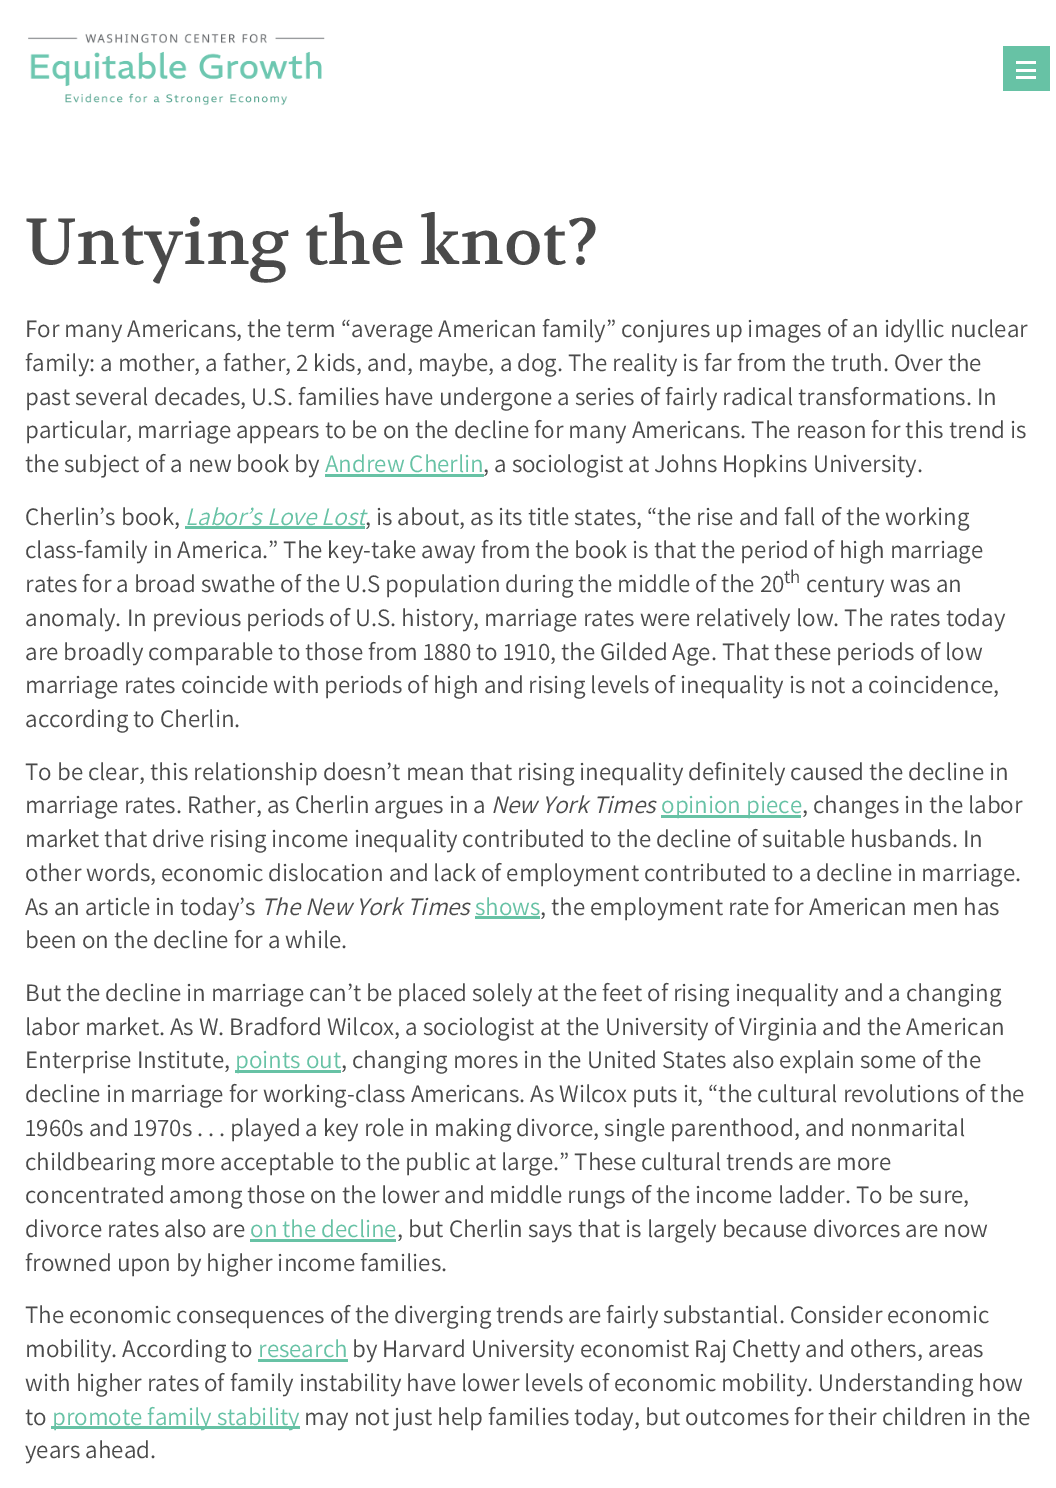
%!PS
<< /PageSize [1056 1488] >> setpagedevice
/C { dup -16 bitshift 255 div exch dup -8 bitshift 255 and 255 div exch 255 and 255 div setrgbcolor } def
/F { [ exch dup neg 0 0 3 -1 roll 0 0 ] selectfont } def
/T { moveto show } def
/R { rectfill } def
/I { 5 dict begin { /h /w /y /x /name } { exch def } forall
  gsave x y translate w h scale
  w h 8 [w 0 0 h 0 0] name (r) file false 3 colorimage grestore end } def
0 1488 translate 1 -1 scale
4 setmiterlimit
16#FFFFFF C
0 0 1056 1488 R
(1.rgb) 28 33 297 73 I
16#67C2A5 C
1003 46 47 45 R
16#FFFFFF C
1016 61 20 3 R
1016 69 20 3 R
1016 76 20 3 R
/Volkhov-Regular 65 F
16#4A4A4A C
(Untying the knot?) 25 264 T
/Assistant-Regular 25 F
(For many Americans, the term “average American family” conjures up images of an idyllic nuclear) 25 337 T
(family: a mother, a father, 2 kids, and, maybe, a dog. The reality is far from the truth. Over the) 25 371 T
(past several decades, U.S. families have undergone a series of fairly radical transformations. In) 25 405 T
(particular, marriage appears to be on the decline for many Americans. The reason for this trend is) 25 438 T
(the subject of a new book by) 25 472 T
16#67C2A5 C
(Andrew Cherlin) 325 472 T
325 474 159 3 R
16#4A4A4A C
(, a sociologist at Johns Hopkins University.) 483 472 T
(Cherlin’s book,) 25 525 T
/Assistant-Italic 25 F
16#67C2A5 C
(Labor’s Love Lost) 185 525 T
185 526 180 3 R
/Assistant-Regular 25 F
16#4A4A4A C
(, is about, as its title states, “the rise and fall of the working) 365 525 T
(class-family in America.” The key-take away from the book is that the period of high marriage) 25 558 T
(rates for a broad swathe of the U.S population during the middle of the 20) 25 592 T
/Assistant-Regular 19 F
(th) 784 583 T
/Assistant-Regular 25 F
(century was an) 806 592 T
(anomaly. In previous periods of U.S. history, marriage rates were relatively low. The rates today) 25 626 T
(are broadly comparable to those from 1880 to 1910, the Gilded Age. That these periods of low) 25 660 T
(marriage rates coincide with periods of high and rising levels of inequality is not a coincidence,) 25 693 T
(according to Cherlin.) 25 727 T
(To be clear, this relationship doesn’t mean that rising inequality definitely caused the decline in) 25 780 T
(marriage rates. Rather, as Cherlin argues in a) 25 813 T
/Assistant-Italic 25 F
(New York Times) 491 813 T
16#67C2A5 C
661 815 140 3 R
/Assistant-Regular 25 F
(opinion piece) 661 813 T
16#4A4A4A C
(, changes in the labor) 802 813 T
(market that drive rising income inequality contributed to the decline of suitable husbands. In) 25 847 T
(other words, economic dislocation and lack of employment contributed to a decline in marriage.) 25 881 T
(As an article in today’s) 25 915 T
/Assistant-Italic 25 F
(The New York Times) 261 915 T
/Assistant-Regular 25 F
16#67C2A5 C
(shows) 475 915 T
475 916 65 3 R
16#4A4A4A C
(, the employment rate for American men has) 540 915 T
(been on the decline for a while.) 25 948 T
(But the decline in marriage can’t be placed solely at the feet of rising inequality and a changing) 25 1001 T
(labor market. As W. Bradford Wilcox, a sociologist at the University of Virginia and the American) 25 1035 T
(Enterprise Institute,) 25 1068 T
16#67C2A5 C
235 1070 106 3 R
(points out) 235 1068 T
16#4A4A4A C
(, changing mores in the United States also explain some of the) 341 1068 T
(decline in marriage for working-class Americans. As Wilcox puts it, “the cultural revolutions of the) 25 1102 T
(1960s and 1970s . . . played a key role in making divorce, single parenthood, and nonmarital) 25 1136 T
(childbearing more acceptable to the public at large.” These cultural trends are more) 25 1170 T
(concentrated among those on the lower and middle rungs of the income ladder. To be sure,) 25 1203 T
(divorce rates also are) 25 1237 T
16#67C2A5 C
(on the decline) 250 1237 T
250 1239 146 3 R
16#4A4A4A C
(, but Cherlin says that is largely because divorces are now) 397 1237 T
(frowned upon by higher income families.) 25 1271 T
(The economic consequences of the diverging trends are fairly substantial. Consider economic) 25 1323 T
(mobility. According to) 25 1357 T
16#67C2A5 C
(research) 258 1357 T
258 1359 90 3 R
16#4A4A4A C
(by Harvard University economist Raj Chetty and others, areas) 352 1357 T
(with higher rates of family instability have lower levels of economic mobility. Understanding how) 25 1391 T
(to) 25 1425 T
16#67C2A5 C
51 1426 249 3 R
(promote family stability) 52 1425 T
16#4A4A4A C
(may not just help families today, but outcomes for their children in the) 304 1425 T
(years ahead.) 25 1458 T
showpage
